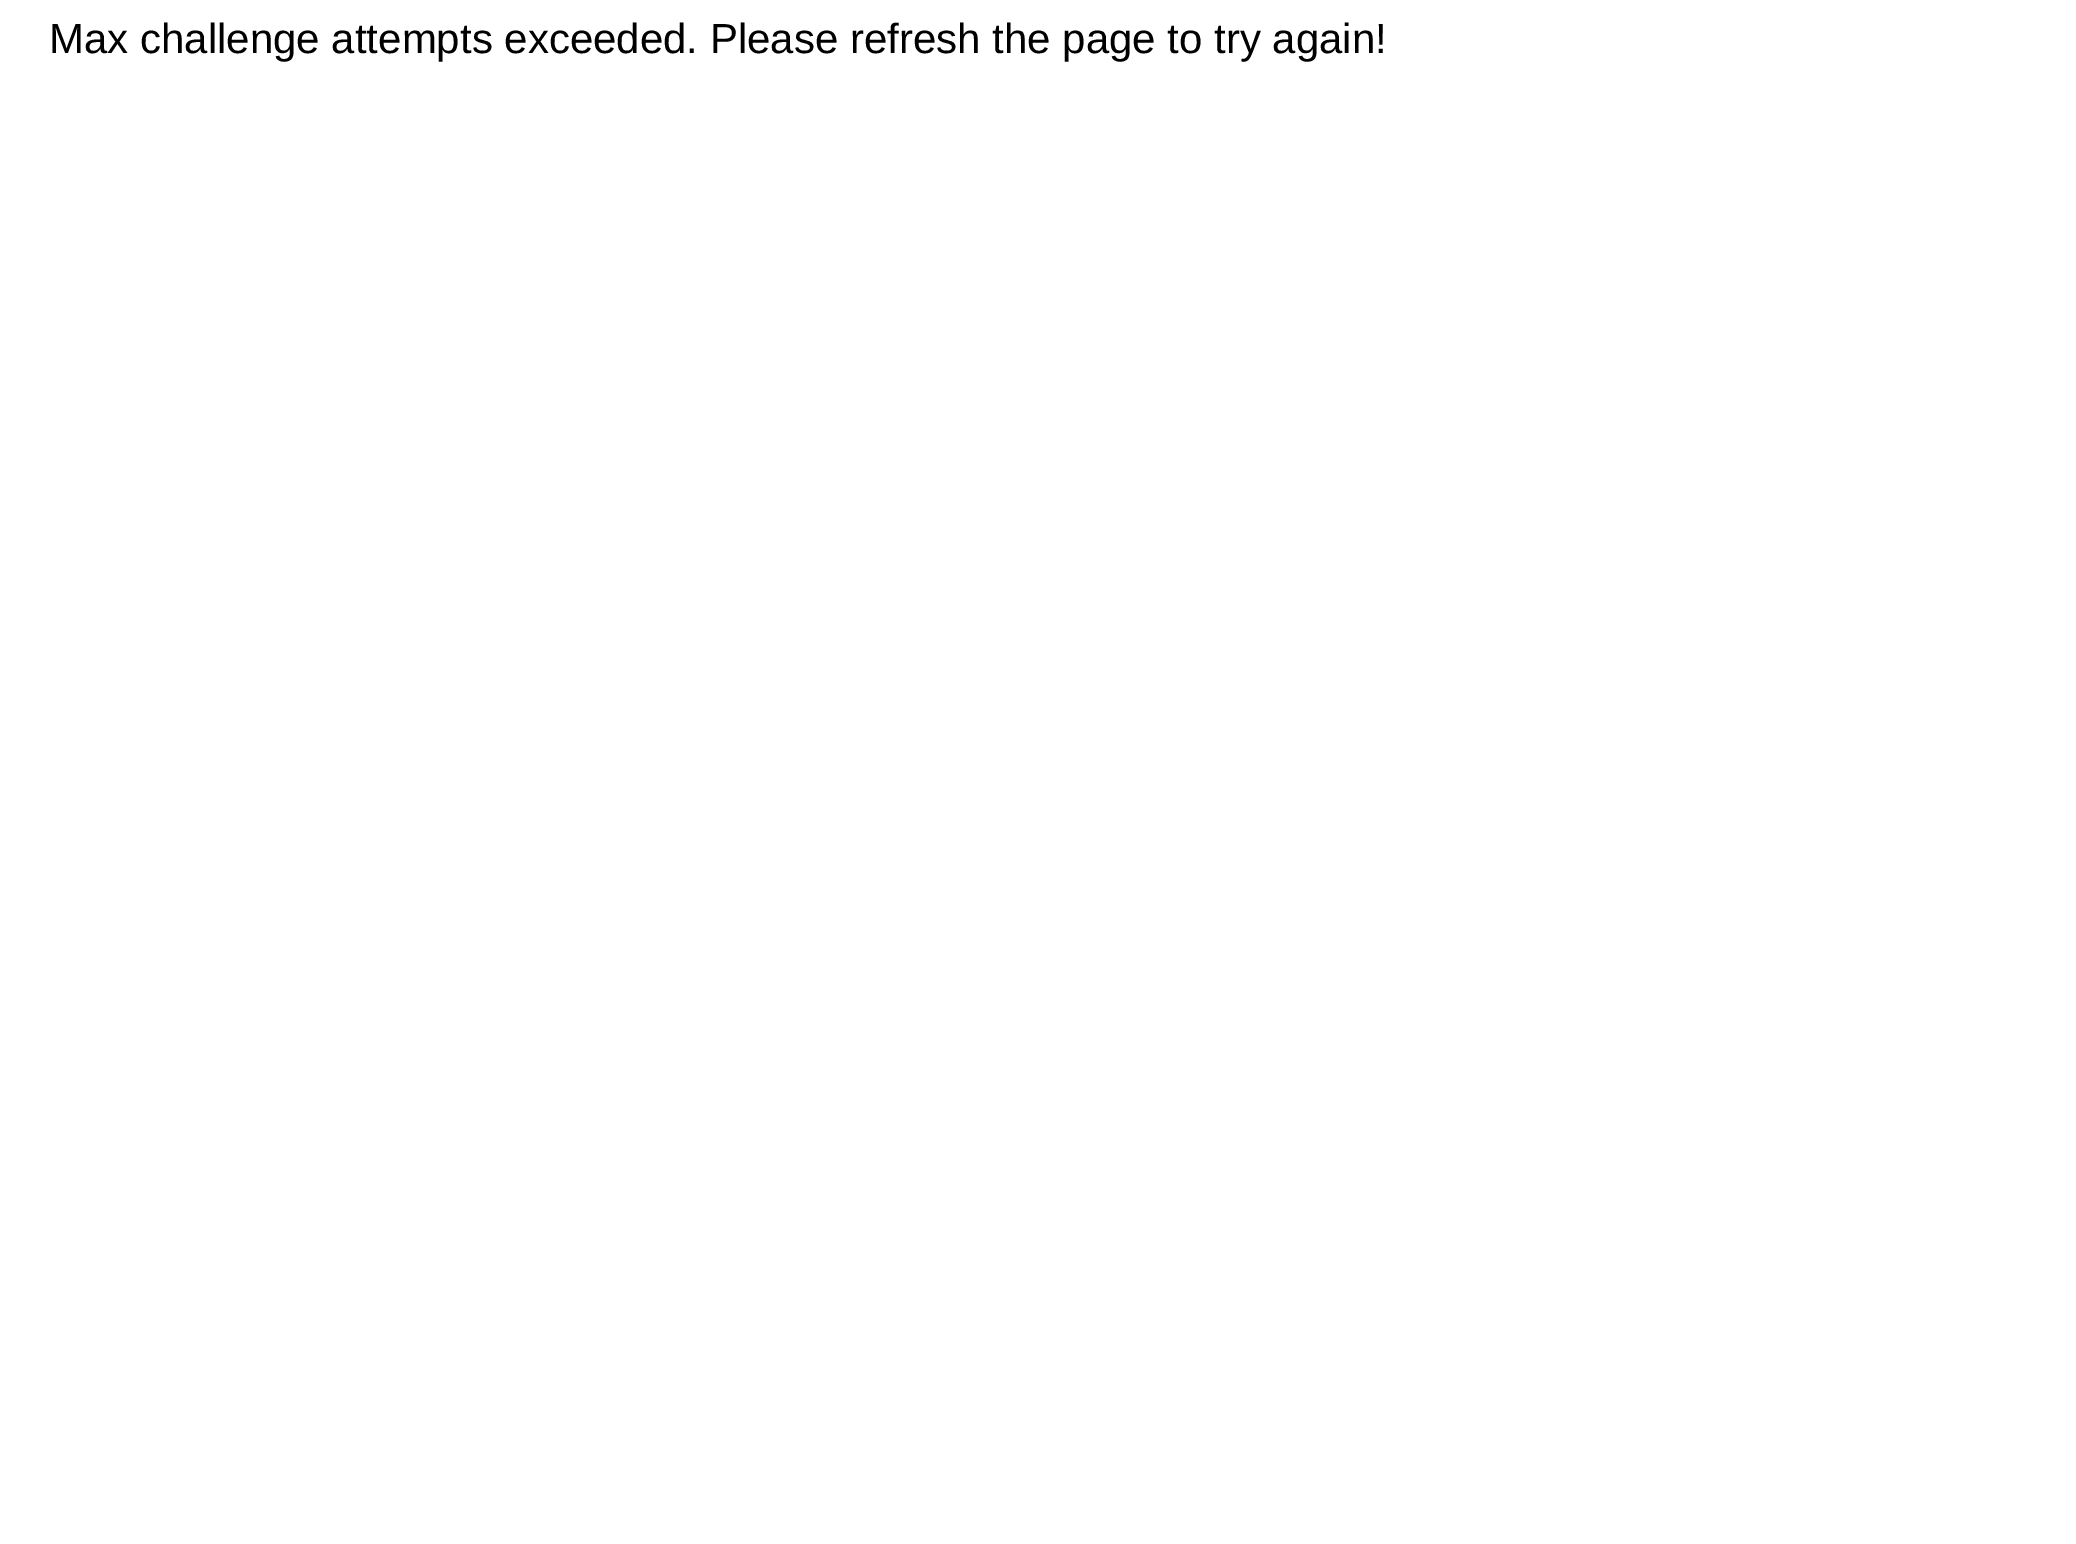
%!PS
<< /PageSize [2076 1544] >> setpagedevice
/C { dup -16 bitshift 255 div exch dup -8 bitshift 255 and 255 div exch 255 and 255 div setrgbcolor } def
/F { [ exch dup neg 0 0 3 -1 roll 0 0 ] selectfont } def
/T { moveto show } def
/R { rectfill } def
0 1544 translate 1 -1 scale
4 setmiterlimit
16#FFFFFF C
0 0 2076 1544 R
/LiberationSans-Regular 42 F
16#000000 C
(Max challenge attempts exceeded. Please refresh the page to try again!) 49 53 T
showpage
